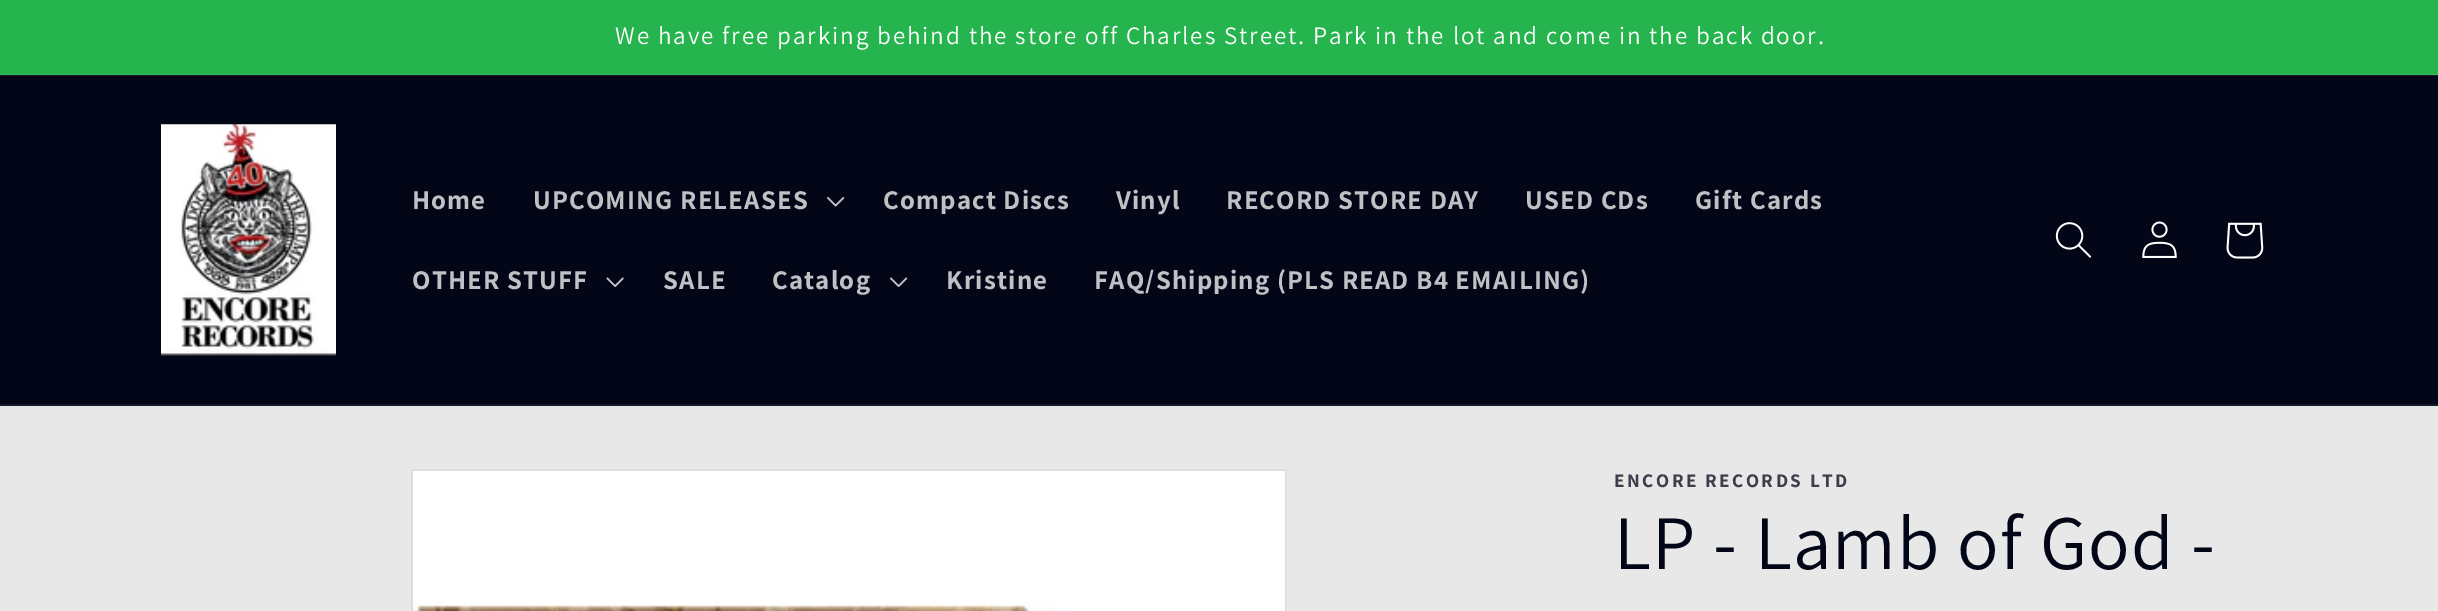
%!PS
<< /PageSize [2438 611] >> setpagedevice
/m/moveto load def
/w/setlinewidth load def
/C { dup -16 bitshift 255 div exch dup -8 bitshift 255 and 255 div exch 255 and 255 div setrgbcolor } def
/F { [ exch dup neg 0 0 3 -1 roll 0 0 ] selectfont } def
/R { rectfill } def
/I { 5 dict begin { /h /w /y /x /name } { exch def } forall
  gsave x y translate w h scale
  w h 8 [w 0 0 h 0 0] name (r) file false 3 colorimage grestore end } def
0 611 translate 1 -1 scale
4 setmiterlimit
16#E8E8E8 C
0 0 2438 611 R
16#26B44E C
0 0 2438 74 R
16#37BA5C C
0 74 2438 1 R
/Assistant-Regular 25.05 F
16#FFFFFF C
615 44 m 1.93 0 (We have free parking behind the store off Charles Street. Park in the lot and come in the back door.) ashow
16#020616 C
0 76 2438 328 R
16#161A29 C
0 75 2438 1 R
0 404 2438 2 R
(1.rgb) 161 124 175 232 I
/Assistant-Bold 27 F
16#C0C1C5 C
412 209 m 1.15 0 (Home) ashow
533 209 m 1.15 0 (UPCOMING RELEASES) ashow
(2.rgb) 827 197 18 10 I
883 209 m 1.15 0 (Compact Discs) ashow
1116 209 m 1.15 0 (Vinyl) ashow
1226 209 m 1.15 0 (RECORD STORE DAY) ashow
1525 209 m 1.15 0 (USED CDs) ashow
1695 209 m 1.15 0 (Gift Cards) ashow
412 289 m 1.15 0 (OTHER STUFF) ashow
(3.rgb) 606 277 18 10 I
663 289 m 1.15 0 (SALE) ashow
772 289 m 1.15 0 (Catalog) ashow
(4.rgb) 890 277 18 10 I
946 289 m 1.15 0 (Kristine) ashow
1094 289 m 1.15 0 (FAQ/Shipping \(PLS READ B4 EMAILING\)) ashow
(5.rgb) 2055 222 37 36 I
(6.rgb) 2142 221 35 37 I
(7.rgb) 2226 222 38 37 I
16#DDDDDE C
2 w
412 470 873 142 rectstroke
(8.rgb) 413 471 872 140 I
/Assistant-Bold 19.25 F
16#3C3F4B C
1614 487 m 2.5 0 (ENCORE RECORDS LTD) ashow
/Assistant-Regular 77 F
16#020616 C
1614 569 m 1.15 0 (LP - Lamb of God -) ashow
showpage
